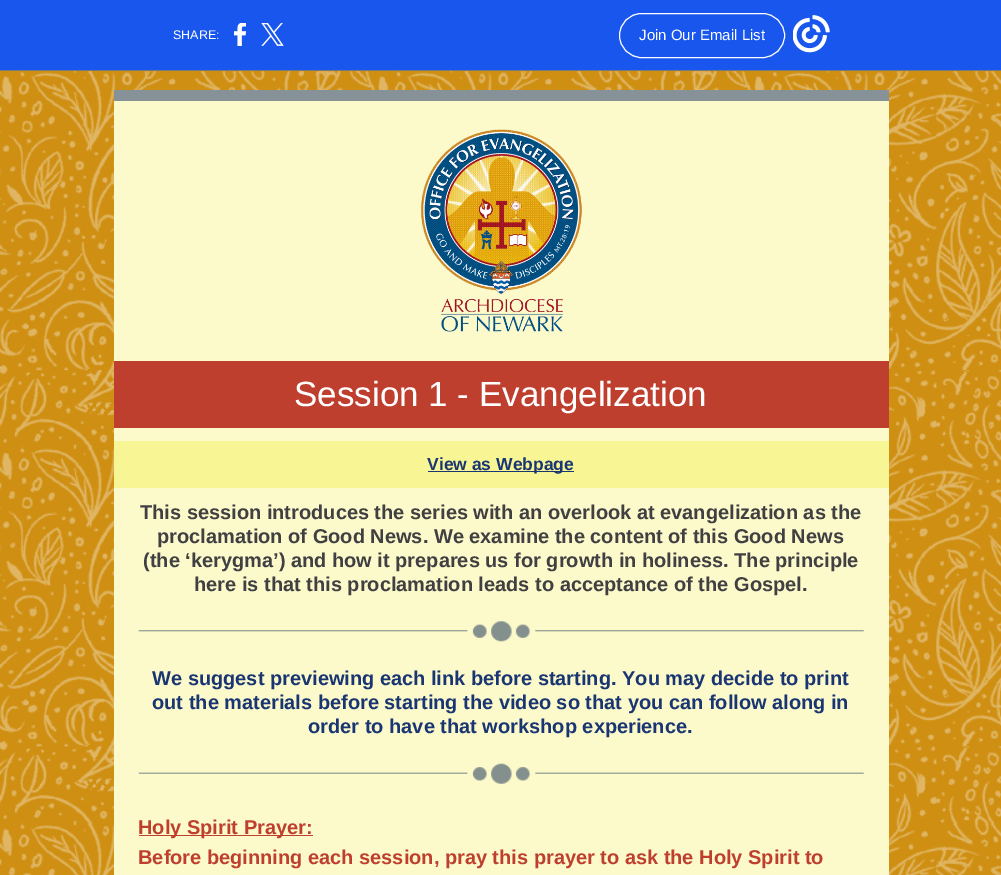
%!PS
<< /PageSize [1001 875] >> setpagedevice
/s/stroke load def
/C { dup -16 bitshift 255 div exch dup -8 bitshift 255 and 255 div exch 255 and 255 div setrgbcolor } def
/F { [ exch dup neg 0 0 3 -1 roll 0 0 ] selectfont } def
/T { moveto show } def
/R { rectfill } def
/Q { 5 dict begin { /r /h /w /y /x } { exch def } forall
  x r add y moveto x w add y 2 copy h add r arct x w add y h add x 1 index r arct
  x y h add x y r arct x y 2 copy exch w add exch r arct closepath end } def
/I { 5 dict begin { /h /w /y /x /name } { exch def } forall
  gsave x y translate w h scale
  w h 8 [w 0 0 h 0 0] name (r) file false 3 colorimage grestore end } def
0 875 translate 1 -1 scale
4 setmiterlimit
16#CF8F12 C
0 0 1001 875 R
16#1856ED C
0 0 1001 70 R
16#7A7A7A C
0 70 1001 1 R
/LiberationSans-Regular 12.5 F
16#FFFFFF C
(SHARE:) 173 39 T
(1.rgb) 234 23 12 23 I
(2.rgb) 261 23 23 23 I
619.5 13.5 165 44 22 Q s
/LiberationSans-Regular 15 F
(Join Our Email List) 639 40 T
(3.rgb) 793 15 37 38 I
(4.rgb) 0 71 1001 804 I
16#FCFACA C
114 101 775 774 R
16#869198 C
114 90 775 11 R
(5.rgb) 421 129 161 203 I
16#BF3F2F C
114 361 775 67 R
/LiberationSans-Regular 35 F
16#FFFFFF C
(Session 1 - Evangelization) 294 406 T
16#F8F595 C
114 441 775 47 R
16#193673 C
428 471 146 1 R
/LiberationSans-Bold 17.5 F
(View as Webpage) 427 470 T
/LiberationSans-Bold 20 F
16#403F42 C
(This session introduces the series with an overlook at evangelization as the) 140 519 T
(proclamation of Good News. We examine the content of this Good News) 157 543 T
(\(the ‘kerygma’\) and how it prepares us for growth in holiness. The principle) 143 567 T
(here is that this proclamation leads to acceptance of the Gospel.) 194 591 T
(6.rgb) 138 621 726 21 I
16#193673 C
(We suggest previewing each link before starting. You may decide to print) 152 685 T
(out the materials before starting the video so that you can follow along in) 152 709 T
(order to have that workshop experience.) 308 733 T
(7.rgb) 138 763 726 21 I
16#BF3F2F C
139 835 174 1 R
(Holy Spirit Prayer:) 138 834 T
(Before beginning each session, pray this prayer to ask the Holy Spirit to) 138 864 T
showpage
